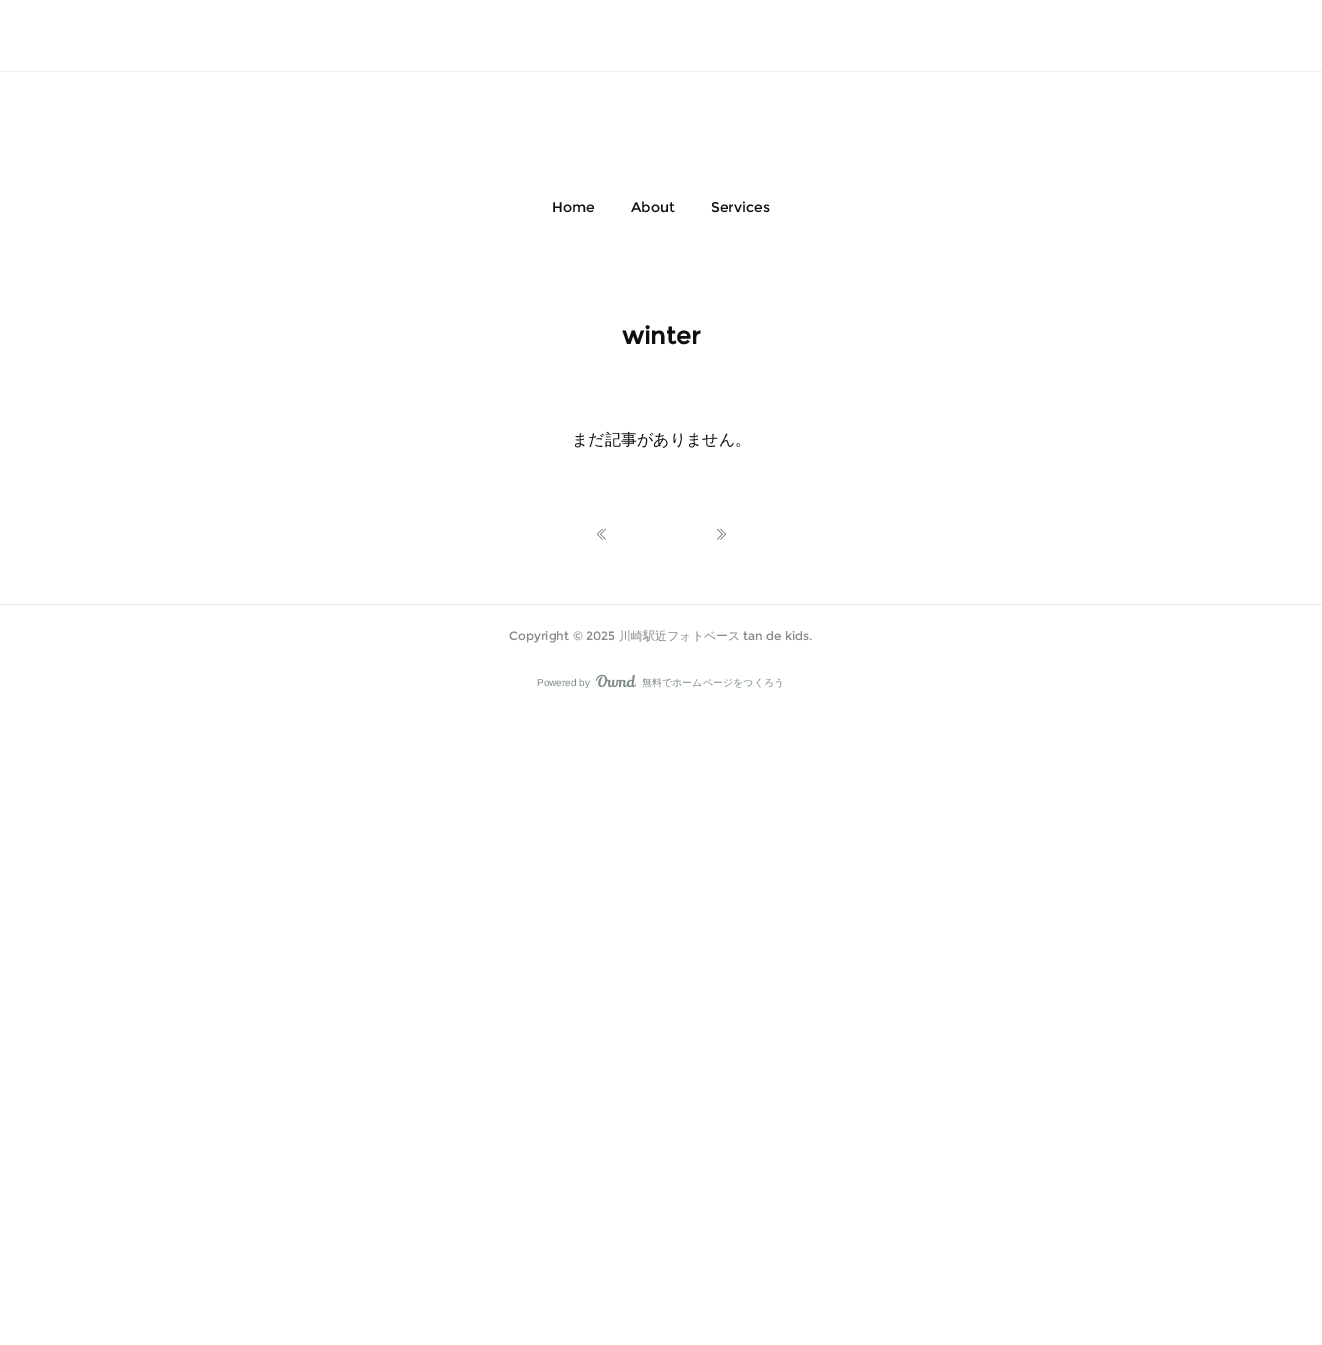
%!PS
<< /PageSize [1322 1345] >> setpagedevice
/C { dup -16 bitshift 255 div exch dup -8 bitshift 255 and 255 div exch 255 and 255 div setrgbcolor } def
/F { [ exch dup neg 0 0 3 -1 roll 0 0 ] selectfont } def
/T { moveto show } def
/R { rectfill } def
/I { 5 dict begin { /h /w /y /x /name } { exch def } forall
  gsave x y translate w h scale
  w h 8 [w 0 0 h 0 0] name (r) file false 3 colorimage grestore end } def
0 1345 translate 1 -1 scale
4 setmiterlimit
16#FFFFFF C
0 0 1322 1345 R
16#EEEEEE C
0 71 1322 1 R
/Montserrat-Regular 14 F
16#101010 C
(Home) 552 212 T
(About) 631 212 T
(Services) 711 212 T
/Montserrat-Bold 24 F
(winter) 622 344 T
/WenQuanYiZenHei-Medium 16 F
(まだ記事がありません。) 572 445 T
(1.rgb) 597 528 9 12 I
(2.rgb) 717 528 9 12 I
16#EBEBEC C
0 604 1322 1 R
/Montserrat-Regular 12 F
16#888888 C
(Copyright © 2025) 509 640 T
/WenQuanYiZenHei-Medium 12 F
(川崎駅近フォトベース) 619 640 T
/Montserrat-Regular 12 F
(tan de kids.) 743 640 T
/LiberationSans-Regular 10 F
16#7D8B88 C
(Powered by) 537 686 T
(3.rgb) 595 674 42 14 I
/WenQuanYiZenHei-Medium 10 F
(無料でホームページをつくろう) 642 686 T
showpage
